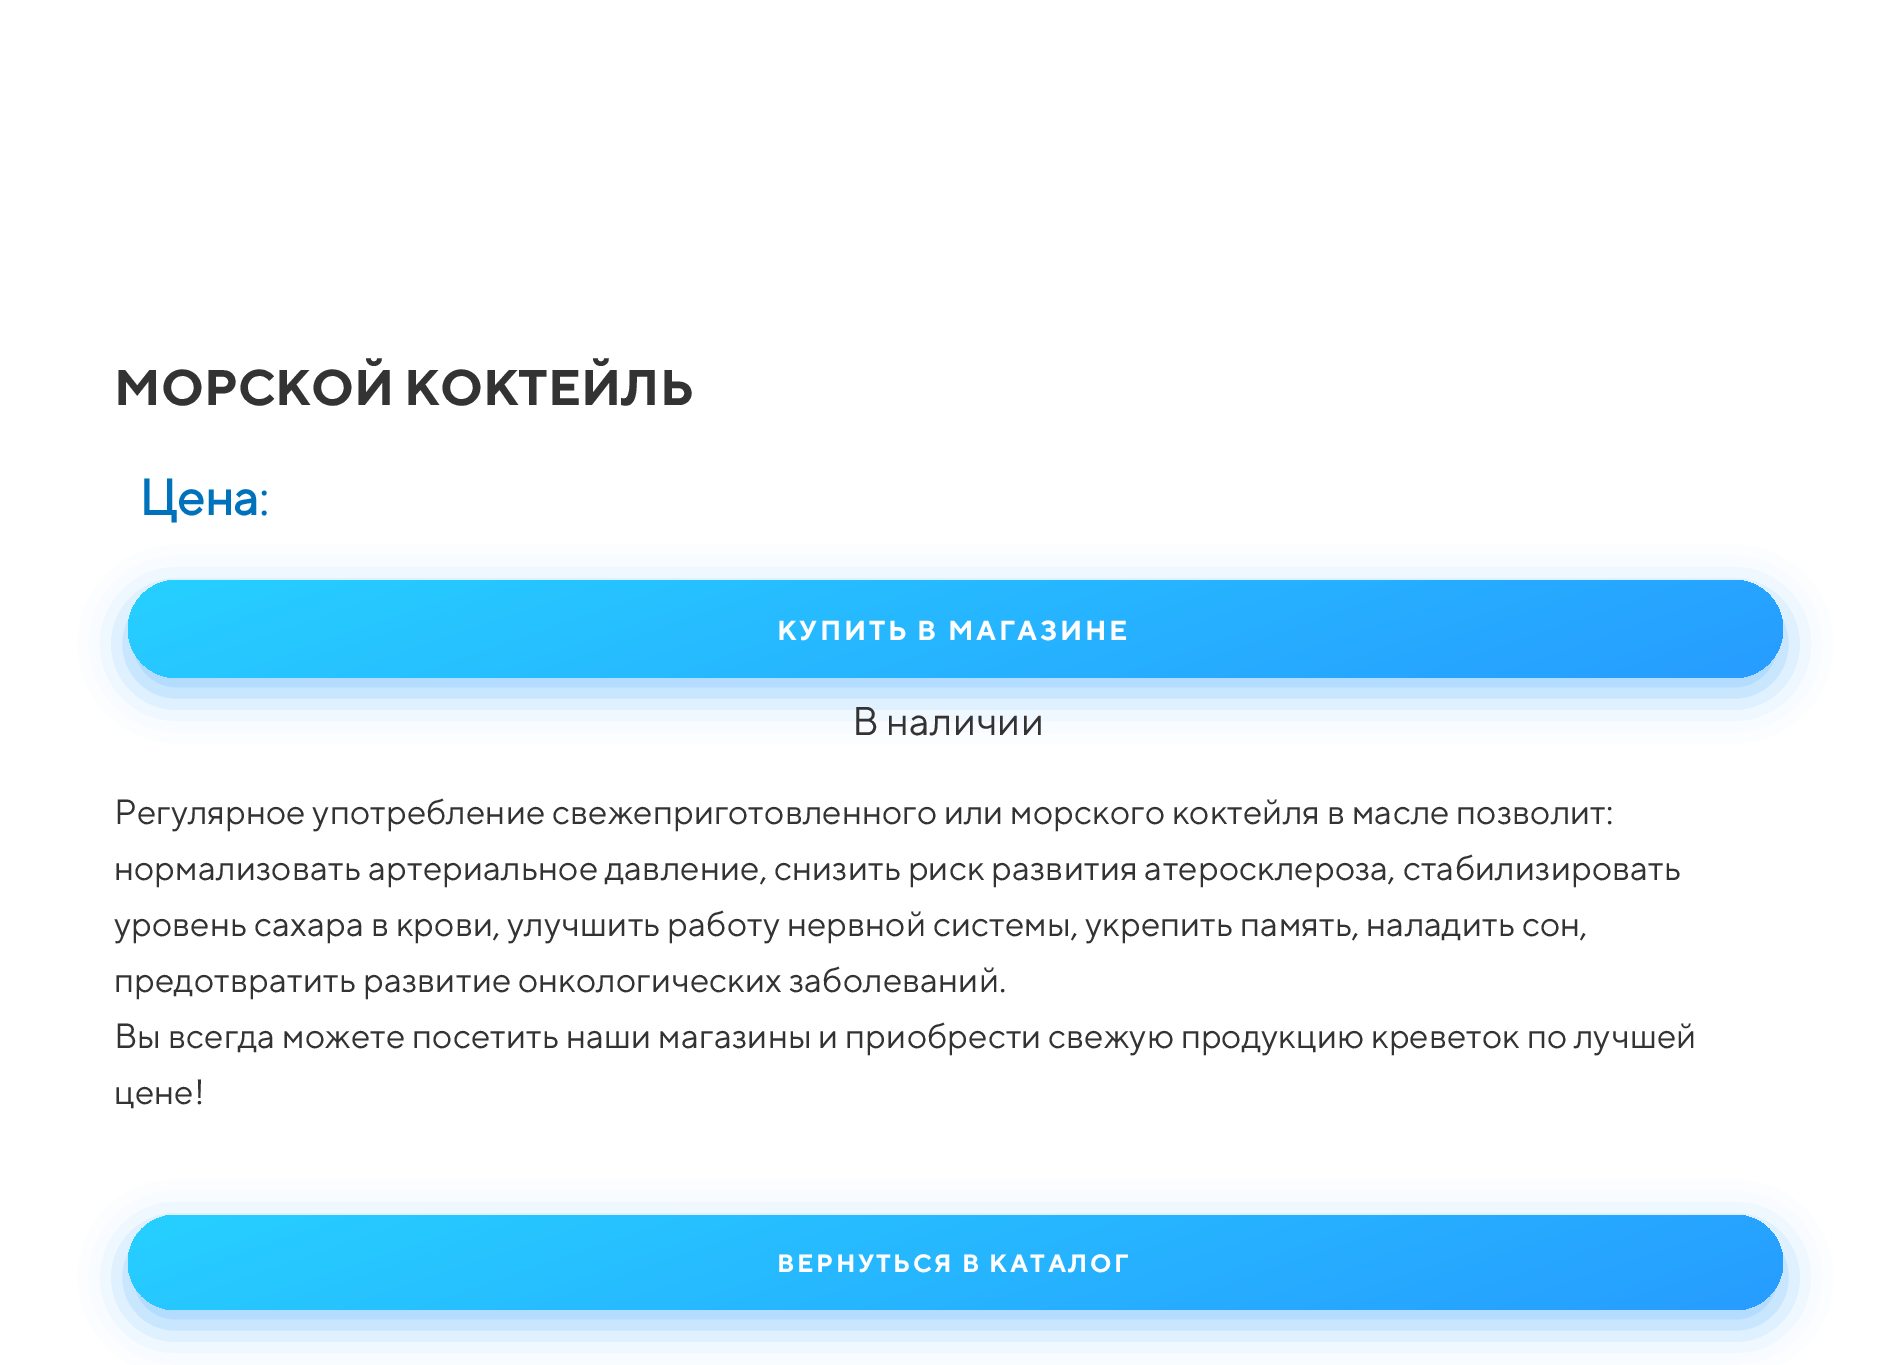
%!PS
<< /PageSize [1894 1365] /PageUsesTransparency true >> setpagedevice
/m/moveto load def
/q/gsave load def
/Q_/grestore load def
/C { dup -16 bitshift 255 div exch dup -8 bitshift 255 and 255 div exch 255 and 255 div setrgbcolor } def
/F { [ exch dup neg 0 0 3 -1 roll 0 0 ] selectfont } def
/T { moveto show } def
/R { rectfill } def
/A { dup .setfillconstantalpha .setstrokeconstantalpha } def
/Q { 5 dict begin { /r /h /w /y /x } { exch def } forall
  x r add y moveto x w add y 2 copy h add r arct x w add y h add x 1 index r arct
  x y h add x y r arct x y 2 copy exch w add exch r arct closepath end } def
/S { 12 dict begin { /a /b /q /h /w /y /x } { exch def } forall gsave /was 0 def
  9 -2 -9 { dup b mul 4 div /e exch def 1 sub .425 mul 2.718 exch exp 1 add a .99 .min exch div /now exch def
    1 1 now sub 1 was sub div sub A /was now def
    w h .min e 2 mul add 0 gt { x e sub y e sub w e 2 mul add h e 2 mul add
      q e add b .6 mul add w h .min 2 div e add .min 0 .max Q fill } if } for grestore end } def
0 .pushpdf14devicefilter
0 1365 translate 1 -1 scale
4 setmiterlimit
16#FFFFFF C
0 0 1894 1365 R
/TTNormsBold-Regular 50 F
16#333333 C
(МОРСКОЙ КОКТЕЙЛЬ) 114 405 T
/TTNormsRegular-Bold 50 F
16#0072BC C
(Цена) 139 515 T
/TTNormsRegular-Regular 50 F
(:) 259 515 T
16#269CFF C
128 595 1655 98 49 22.5 .5 S
q 128 580 1655 98 49 Q clip newpath
<< /ShadingType 2 /ColorSpace /DeviceRGB /Coords [1058 927 852 330] /Extend [true true] /Function << /FunctionType 2 /Domain [0 1] /C0 [.149 .612 1] /C1 [.149 .816 1] /N 1 >> >> shfill Q_
/TTNormsBold-Regular 27.5 F
16#FFFFFF C
777 640 m 2.75 0 (КУПИТЬ В МАГАЗИНЕ) ashow
/TTNormsRegular-Regular 40 F
16#333333 C
(В наличии) 852 735 T
/TTNormsRegular-Regular 35 F
(Регулярное употребление свежеприготовленного или морского коктейля в масле позволит:) 114 824 T
(нормализовать артериальное давление, снизить риск развития атеросклероза, стабилизировать) 114 880 T
(уровень сахара в крови, улучшить работу нервной системы, укрепить память, наладить сон,) 114 936 T
(предотвратить развитие онкологических заболеваний.) 114 992 T
(Вы всегда можете посетить наши магазины и приобрести свежую продукцию креветок по лучшей) 114 1048 T
(цене!) 114 1104 T
16#269CFF C
128 1230 1655 95 47.5 22.5 .5 S
q 128 1215 1655 95 47.5 Q clip newpath
<< /ShadingType 2 /ColorSpace /DeviceRGB /Coords [1057 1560 853 965] /Extend [true true] /Function << /FunctionType 2 /Domain [0 1] /C0 [.149 .612 1] /C1 [.149 .816 1] /N 1 >> >> shfill Q_
/TTNormsBold-Regular 25 F
16#FFFFFF C
777 1272 m 2.5 0 (ВЕРНУТЬСЯ В КАТАЛОГ) ashow
.poppdf14devicefilter showpage
